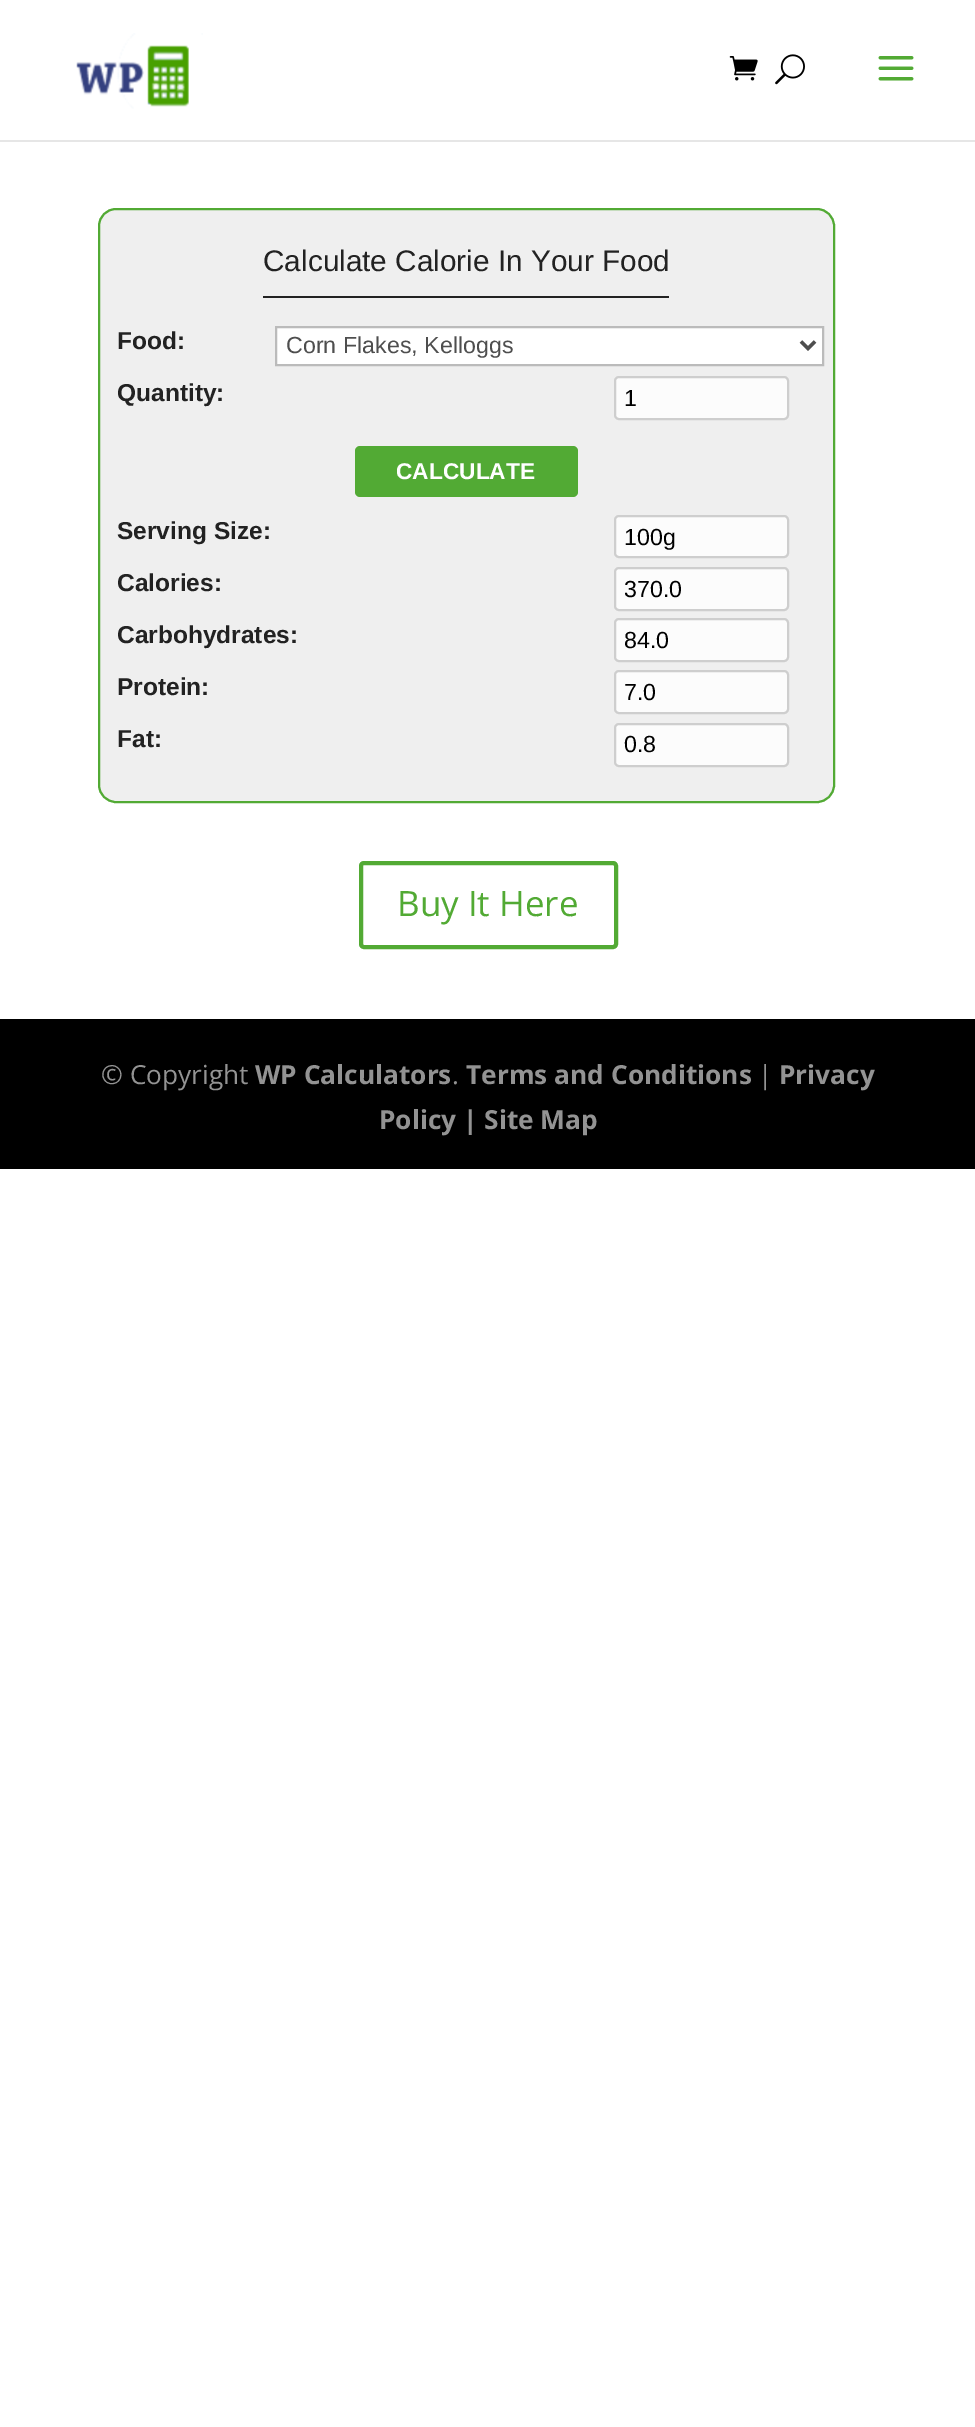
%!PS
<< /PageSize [975 2427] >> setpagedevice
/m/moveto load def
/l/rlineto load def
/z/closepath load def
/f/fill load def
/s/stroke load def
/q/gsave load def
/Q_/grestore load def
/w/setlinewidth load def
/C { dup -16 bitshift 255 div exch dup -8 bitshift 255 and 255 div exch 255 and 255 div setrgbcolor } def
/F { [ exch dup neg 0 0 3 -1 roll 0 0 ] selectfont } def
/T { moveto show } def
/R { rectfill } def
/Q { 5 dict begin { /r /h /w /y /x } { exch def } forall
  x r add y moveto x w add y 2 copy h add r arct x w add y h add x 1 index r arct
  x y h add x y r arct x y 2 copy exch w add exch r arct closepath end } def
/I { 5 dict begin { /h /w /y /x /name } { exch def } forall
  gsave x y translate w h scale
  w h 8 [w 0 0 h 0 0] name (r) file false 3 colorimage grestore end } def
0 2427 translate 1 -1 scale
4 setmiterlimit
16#FFFFFF C
0 0 975 2427 R
16#E6E6E6 C
0 140 m 0 2 l 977 0 l 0 -140 l -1 0 l 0 138 l z f
(1.rgb) 76 33 127 76 I
(2.rgb) 729 56 29 25 I
(3.rgb) 775 54 30 31 I
(4.rgb) 878 56 36 25 I
16#EFEFEF C
99 209 735 593 17 Q q f Q_
16#52AA34 C
2 w
s
/LiberationSans-Regular 29.75 F
16#222222 C
(Calculate Calorie In Your Food) 263 271 T
263 296 406 2 R
/LiberationSans-Bold 24.5 F
(Food:) 117 349 T
16#FFFFFF C
276 327 m 547 0 l 0 38 l -547 0 l z q f Q_
16#BBBBBB C
s
16#4E4E4E C
3.5 w
801 341.5 m 7 7 l 7 -7 l s
/LiberationSans-Regular 23.25 F
(Corn Flakes, Kelloggs) 286 353 T
/LiberationSans-Bold 24.5 F
16#222222 C
(Quantity:) 117 401 T
16#FCFCFC C
615 377 173 42 4 Q q f Q_
16#CECECE C
2 w
s
/LiberationSans-Regular 23.25 F
16#000000 C
(1) 624 406 T
16#52AA34 C
355 446 223 51 5 Q f
/LiberationSans-Bold 22.75 F
16#FFFFFF C
(CALCULATE) 396 479 T
/LiberationSans-Bold 24.5 F
16#222222 C
(Serving Size:) 117 539 T
16#FCFCFC C
615 516 173 41 4 Q q f Q_
16#CECECE C
s
/LiberationSans-Regular 23.25 F
16#000000 C
(100g) 624 545 T
/LiberationSans-Bold 24.5 F
16#222222 C
(Calories:) 117 591 T
16#FCFCFC C
615 568 173 42 4 Q q f Q_
16#CECECE C
s
/LiberationSans-Regular 23.25 F
16#000000 C
(370.0) 624 597 T
/LiberationSans-Bold 24.5 F
16#222222 C
(Carbohydrates:) 117 643 T
16#FCFCFC C
615 619 173 42 4 Q q f Q_
16#CECECE C
s
/LiberationSans-Regular 23.25 F
16#000000 C
(84.0) 624 648 T
/LiberationSans-Bold 24.5 F
16#222222 C
(Protein:) 117 695 T
16#FCFCFC C
615 671 173 42 4 Q q f Q_
16#CECECE C
s
/LiberationSans-Regular 23.25 F
16#000000 C
(7.0) 624 700 T
/LiberationSans-Bold 24.5 F
16#222222 C
(Fat:) 117 747 T
16#FCFCFC C
615 724 173 42 4 Q q f Q_
16#CECECE C
s
/LiberationSans-Regular 23.25 F
16#000000 C
(0.8) 624 752 T
16#52AA34 C
4 w
361 863 255 84 3 Q s
/OpenSans-Regular 35 F
(Buy It Here) 397 916 T
16#000000 C
0 1019 975 150 R
/OpenSans-Regular 26.25 F
16#939393 C
(© Copyright) 101 1084 T
/OpenSans-Bold 26.25 F
(WP Calculators) 255 1084 T
/OpenSans-Regular 26.25 F
(.) 452 1084 T
/OpenSans-Bold 26.25 F
(Terms and Conditions) 466 1084 T
/OpenSans-Regular 26.25 F
(|) 758 1084 T
/OpenSans-Bold 26.25 F
(Privacy) 779 1084 T
(Policy | Site Map) 379 1129 T
showpage
